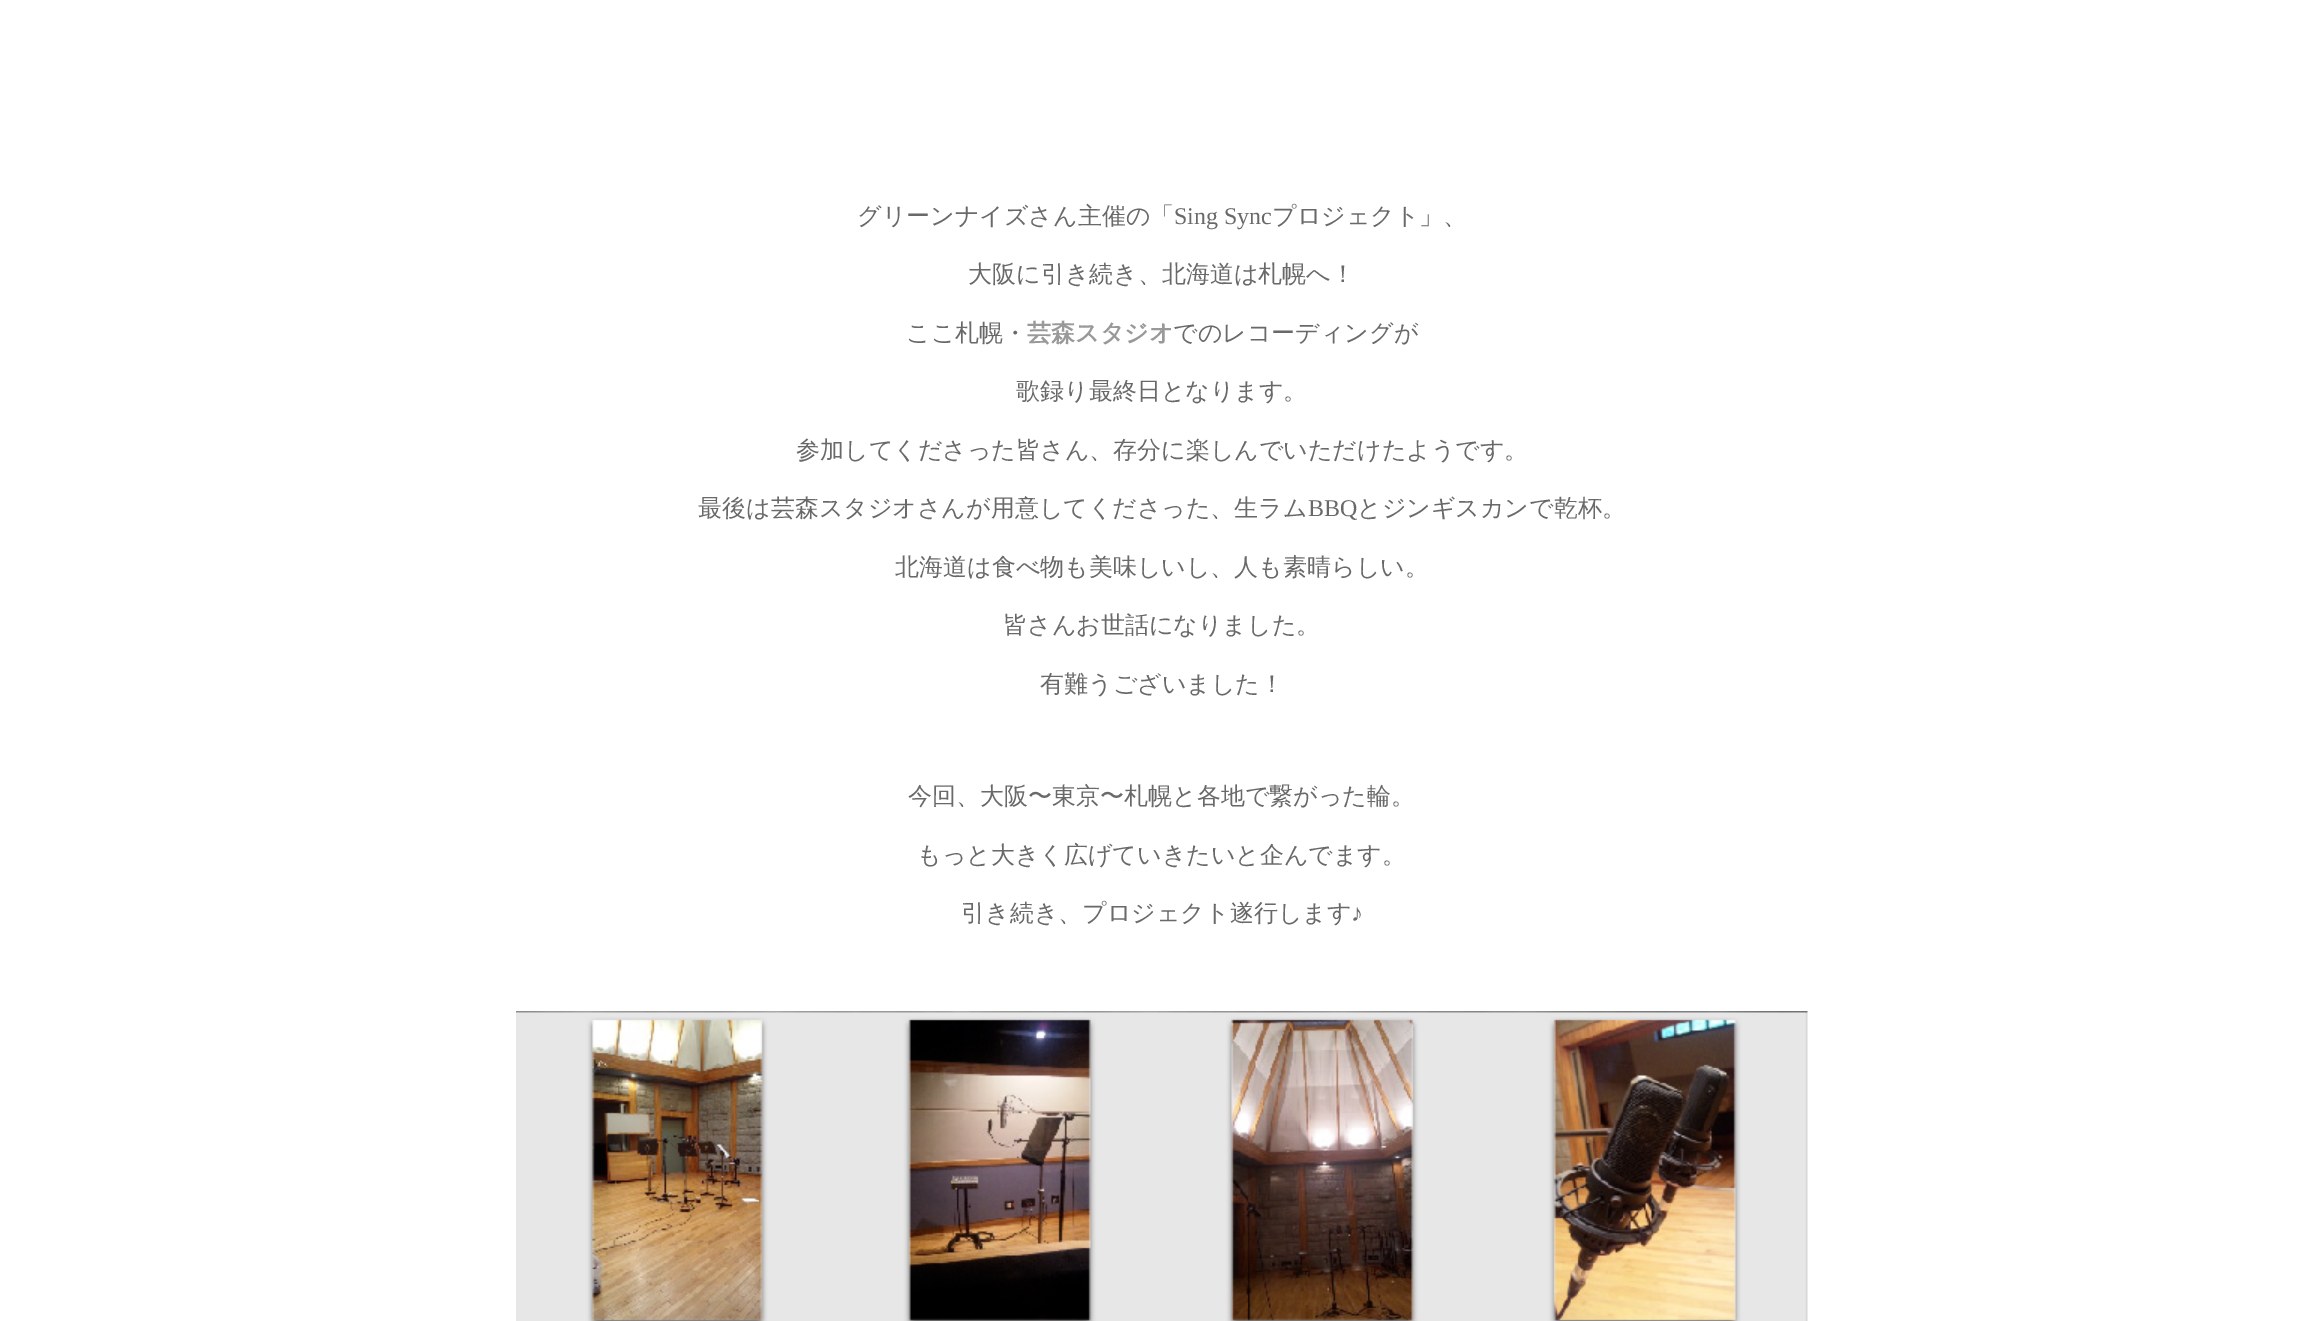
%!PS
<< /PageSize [2323 1321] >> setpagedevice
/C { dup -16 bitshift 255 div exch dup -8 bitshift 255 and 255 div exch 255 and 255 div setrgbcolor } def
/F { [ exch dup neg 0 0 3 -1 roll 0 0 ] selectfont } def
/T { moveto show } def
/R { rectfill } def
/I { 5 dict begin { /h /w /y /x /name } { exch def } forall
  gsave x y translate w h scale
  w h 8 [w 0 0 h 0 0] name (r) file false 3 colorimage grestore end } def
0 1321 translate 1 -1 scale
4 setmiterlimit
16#FFFFFF C
0 0 2323 1321 R
/WenQuanYiZenHei-Medium 24 F
16#696969 C
(グリーンナイズさん主催の「) 857 224 T
/LiberationSerif-Regular 24 F
(Sing Sync) 1174 224 T
/WenQuanYiZenHei-Medium 24 F
(プロジェクト」、) 1272 224 T
(大阪に引き続き、北海道は札幌へ！) 968 282 T
(ここ札幌・) 906 341 T
/WenQuanYiZenHei-Bold 24 F
16#999999 C
(芸森スタジオ) 1027 341 T
/WenQuanYiZenHei-Medium 24 F
16#696969 C
(でのレコーディングが) 1173 341 T
(歌録り最終日となります。) 1016 399 T
(参加してくださった皆さん、存分に楽しんでいただけたようです。) 796 458 T
(最後は芸森スタジオさんが用意してくださった、生ラム) 698 516 T
/LiberationSerif-Regular 24 F
(BBQ) 1308 516 T
/WenQuanYiZenHei-Medium 24 F
(とジンギスカンで乾杯。) 1357 516 T
(北海道は食べ物も美味しいし、人も素晴らしい。) 895 575 T
(皆さんお世話になりました。) 1003 633 T
(有難うございました！) 1040 692 T
(今回、大阪〜東京〜札幌と各地で繋がった輪。) 908 804 T
(もっと大きく広げていきたいと企んでます。) 917 863 T
(引き続き、プロジェクト遂行します) 961 921 T
/LiberationSerif-Regular 24 F
(♪) 1351 921 T
(1.rgb) 516 1011 1292 310 I
showpage
